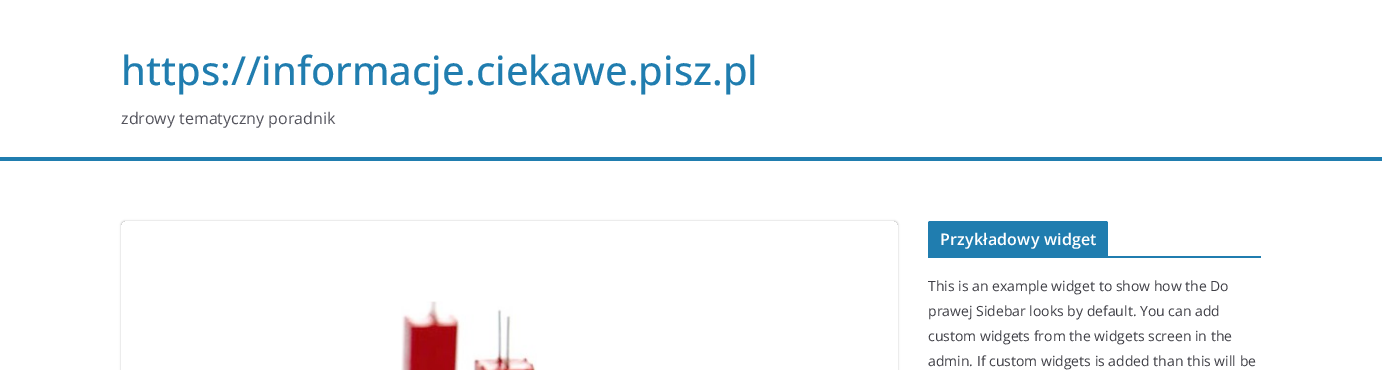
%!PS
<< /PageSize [1382 370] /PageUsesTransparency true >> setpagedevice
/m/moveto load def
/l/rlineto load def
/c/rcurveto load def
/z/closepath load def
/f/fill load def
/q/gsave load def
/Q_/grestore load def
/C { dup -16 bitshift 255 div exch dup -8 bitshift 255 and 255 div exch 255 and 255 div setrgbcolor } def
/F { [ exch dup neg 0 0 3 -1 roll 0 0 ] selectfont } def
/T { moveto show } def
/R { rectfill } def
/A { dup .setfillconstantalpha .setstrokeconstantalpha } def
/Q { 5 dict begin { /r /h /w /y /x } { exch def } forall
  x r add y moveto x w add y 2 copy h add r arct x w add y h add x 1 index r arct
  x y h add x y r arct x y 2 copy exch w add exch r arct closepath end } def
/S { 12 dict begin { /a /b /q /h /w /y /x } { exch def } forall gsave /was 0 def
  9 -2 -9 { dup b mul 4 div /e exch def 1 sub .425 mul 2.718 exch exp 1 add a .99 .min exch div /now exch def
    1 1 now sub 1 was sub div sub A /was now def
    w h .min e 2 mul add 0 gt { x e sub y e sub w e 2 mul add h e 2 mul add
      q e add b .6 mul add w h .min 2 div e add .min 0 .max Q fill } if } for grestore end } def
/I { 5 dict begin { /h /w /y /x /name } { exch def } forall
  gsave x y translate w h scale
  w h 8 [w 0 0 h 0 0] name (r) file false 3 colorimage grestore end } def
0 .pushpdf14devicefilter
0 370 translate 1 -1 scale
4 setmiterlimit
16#FFFFFF C
0 0 1382 370 R
/OpenSans-Medium 40 F
16#207DAF C
(https://informacje.ciekawe.pisz.pl) 121 85 T
/OpenSans-Regular 16 F
16#52525B C
(zdrowy tematyczny poradnik) 121 124 T
16#207DAF C
0 157 1382 4 R
q
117 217 m 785 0 l 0 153 l -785 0 l z 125 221 m 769 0 l 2 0 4 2 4 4 c 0 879 l 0 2 -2 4 -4 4 c -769 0 l -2 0 -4 -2 -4 -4 c 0 -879 l 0 -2 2 -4 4 -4 c z eoclip newpath
16#000000 C
121 221 777 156 4 1 .24 S
Q_
(1.rgb) 401 301 136 69 I
928 256 333 2 R
930 221 m 176 0 l 1 0 2 1 2 2 c 0 33 l -180 0 l 0 -33 l 0 -1 1 -2 2 -2 c z f
/OpenSans-SemiBold 16 F
16#FFFFFF C
940 245 m .2 0 (Przykładowy widget) ashow
/OpenSans-Regular 14 F
16#3F3F46 C
(This is an example widget to show how the Do) 928 291 T
(prawej Sidebar looks by default. You can add) 928 316 T
(custom widgets from the widgets screen in the) 928 341 T
(admin. If custom widgets is added than this will be) 928 366 T
.poppdf14devicefilter showpage
